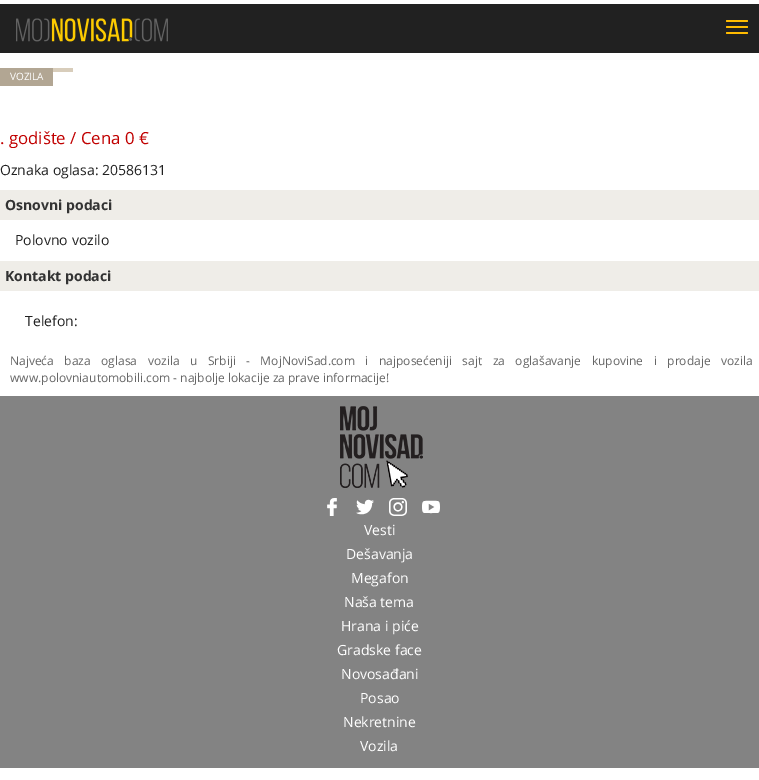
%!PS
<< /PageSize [759 780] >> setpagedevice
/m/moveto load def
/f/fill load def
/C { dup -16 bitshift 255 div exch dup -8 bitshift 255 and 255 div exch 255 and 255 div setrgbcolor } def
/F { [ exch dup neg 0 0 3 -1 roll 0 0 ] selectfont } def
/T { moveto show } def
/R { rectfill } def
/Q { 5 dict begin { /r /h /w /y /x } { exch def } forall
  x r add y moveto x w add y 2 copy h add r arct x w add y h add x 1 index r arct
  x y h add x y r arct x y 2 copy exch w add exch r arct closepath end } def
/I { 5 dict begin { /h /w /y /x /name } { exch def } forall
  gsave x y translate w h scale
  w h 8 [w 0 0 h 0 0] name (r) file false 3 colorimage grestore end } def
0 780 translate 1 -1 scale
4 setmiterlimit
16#FFFFFF C
0 0 759 780 R
16#212121 C
0 4 759 49 R
(1.rgb) 16 18 152 24 I
16#FFBB01 C
726 20 22 2 1 Q f
726 26 22 2 1 Q f
726 32 22 2 1 Q f
16#D8CDBB C
53 68 20 4 R
16#B2A693 C
0 68 53 18 R
/OpenSans-Regular 10 F
16#FFFFFF C
(VOZILA) 10 80 T
/OpenSans-Regular 16.75 F
16#C10000 C
(. godište / Cena 0 €) 0 144 T
/OpenSans-Regular 14 F
16#212121 C
(Oznaka oglasa: 20586131) 0 175 T
16#EFEDE8 C
0 190 759 30 R
/OpenSans-Bold 14 F
16#333333 C
(Osnovni podaci) 5 210 T
/OpenSans-Regular 14 F
16#212121 C
(Polovno vozilo) 15 245 T
16#EFEDE8 C
0 261 759 30 R
/OpenSans-Bold 14 F
16#333333 C
(Kontakt podaci) 5 281 T
/OpenSans-Regular 14 F
16#212121 C
(Telefon:) 25 326 T
/OpenSans-Regular 12 F
16#666666 C
10 365 m 7.4 0 32 (Najveća baza oglasa vozila u Srbiji - MojNoviSad.com i najposećeniji sajt za oglašavanje kupovine i prodaje vozila) widthshow
(www.polovniautomobili.com - najbolje lokacije za prave informacije!) 10 382 T
16#838383 C
0 396 759 372 R
(2.rgb) 340 406 83 82 I
(3.rgb) 327 498 10 18 I
(4.rgb) 356 499 18 16 I
(5.rgb) 389 498 18 18 I
(6.rgb) 422 500 18 14 I
/OpenSans-Regular 14 F
16#FFFFFF C
(Vesti) 364 535 T
(Dešavanja) 346 559 T
(Megafon) 351 583 T
(Naša tema) 344 607 T
(Hrana i piće) 341 631 T
(Gradske face) 337 655 T
(Novosađani) 341 679 T
(Posao) 360 703 T
(Nekretnine) 343 727 T
(Vozila) 360 751 T
showpage
